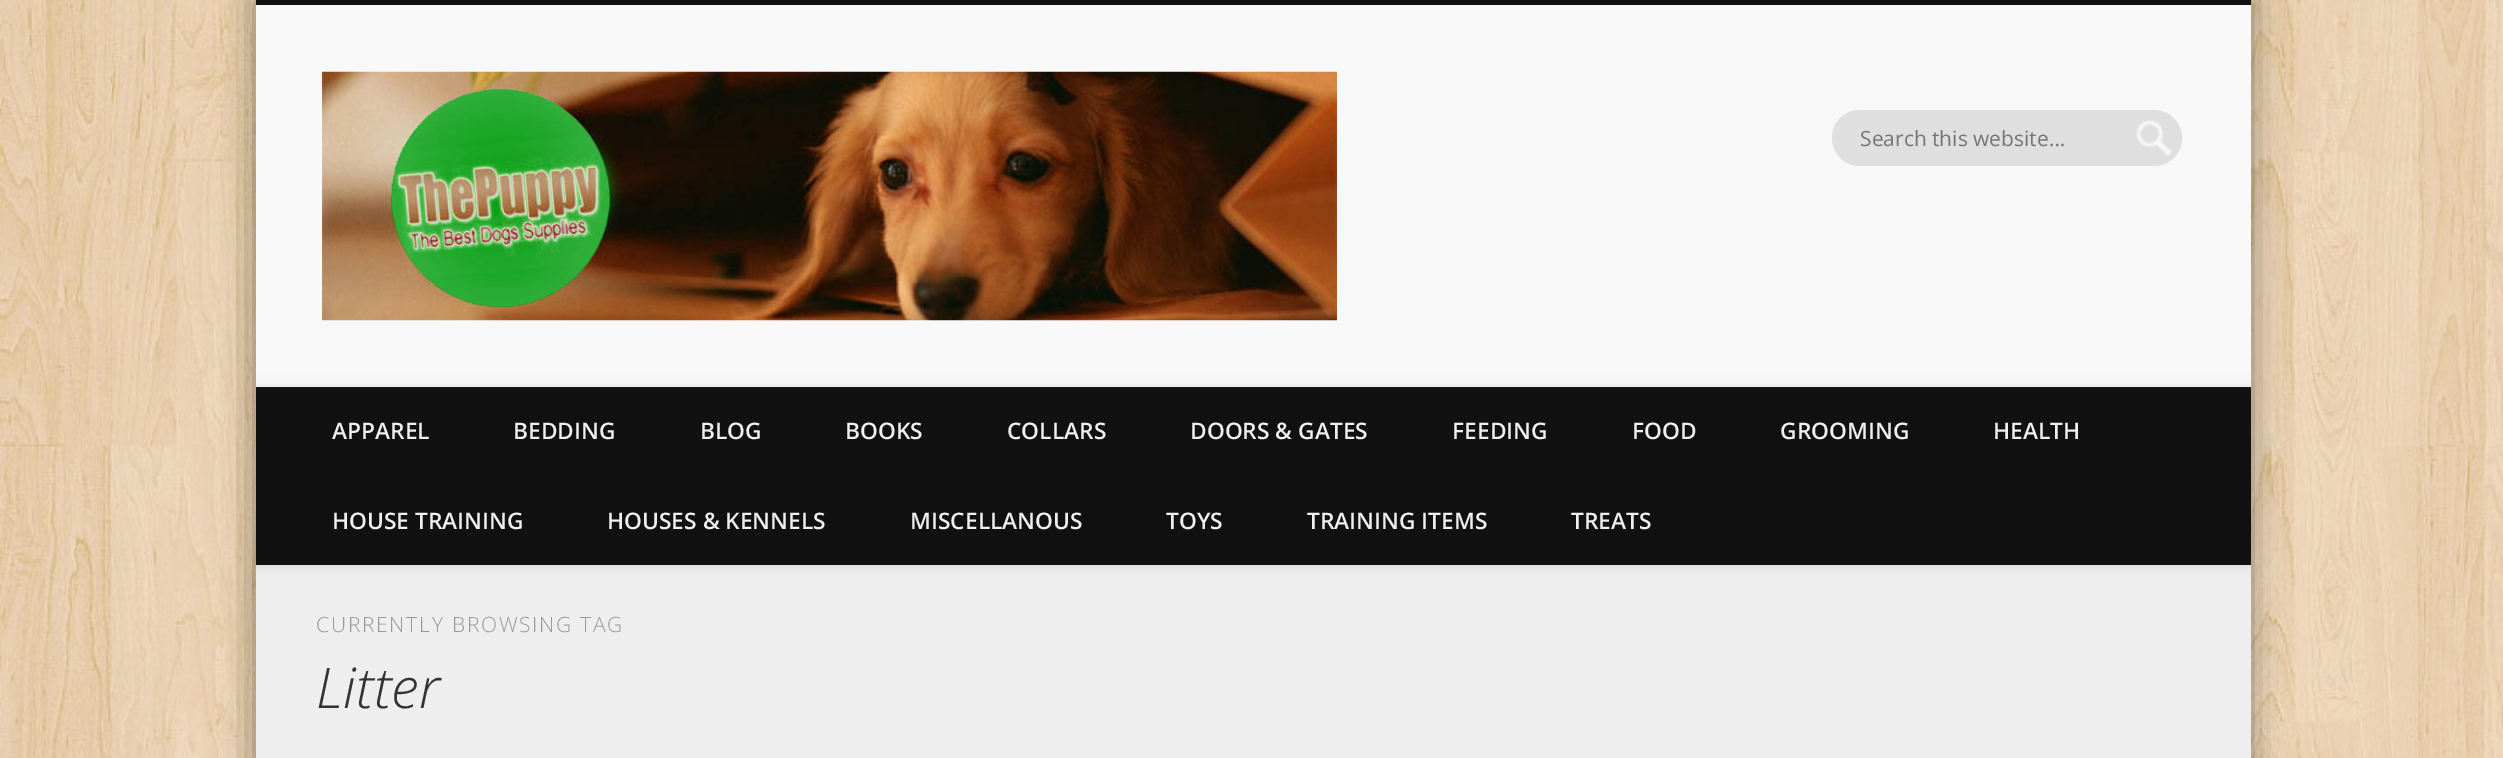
%!PS
<< /PageSize [2503 758] /PageUsesTransparency true >> setpagedevice
/m/moveto load def
/f/fill load def
/q/gsave load def
/Q_/grestore load def
/C { dup -16 bitshift 255 div exch dup -8 bitshift 255 and 255 div exch 255 and 255 div setrgbcolor } def
/F { [ exch dup neg 0 0 3 -1 roll 0 0 ] selectfont } def
/T { moveto show } def
/R { rectfill } def
/A { dup .setfillconstantalpha .setstrokeconstantalpha } def
/Q { 5 dict begin { /r /h /w /y /x } { exch def } forall
  x r add y moveto x w add y 2 copy h add r arct x w add y h add x 1 index r arct
  x y h add x y r arct x y 2 copy exch w add exch r arct closepath end } def
/S { 12 dict begin { /a /b /q /h /w /y /x } { exch def } forall gsave /was 0 def
  9 -2 -9 { dup b mul 4 div /e exch def 1 sub .425 mul 2.718 exch exp 1 add a .99 .min exch div /now exch def
    1 1 now sub 1 was sub div sub A /was now def
    w h .min e 2 mul add 0 gt { x e sub y e sub w e 2 mul add h e 2 mul add
      q e add b .6 mul add w h .min 2 div e add .min 0 .max Q fill } if } for grestore end } def
/I { 5 dict begin { /h /w /y /x /name } { exch def } forall
  gsave x y translate w h scale
  w h 8 [w 0 0 h 0 0] name (r) file false 3 colorimage grestore end } def
0 .pushpdf14devicefilter
0 758 translate 1 -1 scale
4 setmiterlimit
16#FFFFFF C
0 0 2503 758 R
(1.rgb) 0 0 2503 758 I
16#000000 C
256 0 1995 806 0 16 .4 S
16#F8F8F8 C
256 5 1995 382 R
16#111111 C
256 0 1995 5 R
(2.rgb) 322 71 1015 250 I
16#DFDFDF C
1832 110 350 56 28 Q f
(3.rgb) 2136 120 36 36 I
/OpenSans-Regular 21 F
16#757575 C
(Search this website…) 1860 146 T
16#EEEEEE C
256 565 1995 193 R
q
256 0 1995 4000 rectclip
16#000000 C
256 387 1995 178 0 6 .1 S
Q_
16#111111 C
256 387 1995 178 R
/OpenSans-SemiBold 22.75 F
16#F0F0F0 C
(APPAREL) 332 439 T
(BEDDING) 513 439 T
(BLOG) 700 439 T
(BOOKS) 845 439 T
(COLLARS) 1007 439 T
(DOORS & GATES) 1190 439 T
(FEEDING) 1452 439 T
(FOOD) 1632 439 T
(GROOMING) 1780 439 T
(HEALTH) 1993 439 T
(HOUSE TRAINING) 332 529 T
(HOUSES & KENNELS) 607 529 T
(MISCELLANOUS) 910 529 T
(TOYS) 1166 529 T
(TRAINING ITEMS) 1307 529 T
(TREATS) 1571 529 T
/OpenSans-Light 21 F
16#999999 C
316 632 m 1.75 0 (CURRENTLY BROWSING TAG) ashow
/OpenSans-LightItalic 56 F
16#333333 C
(Litter) 316 708 T
.poppdf14devicefilter showpage
